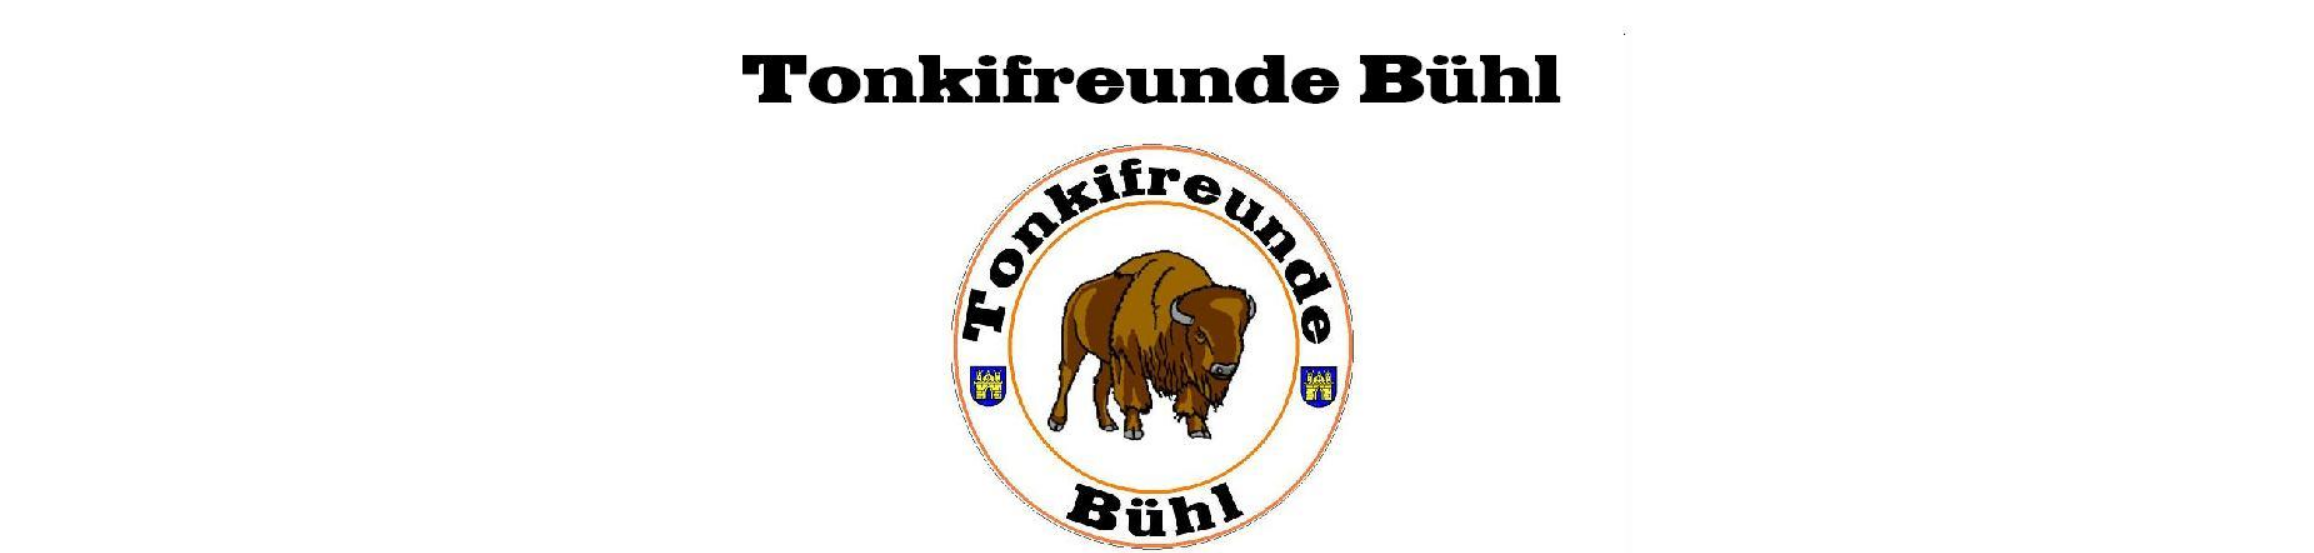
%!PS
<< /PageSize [2314 553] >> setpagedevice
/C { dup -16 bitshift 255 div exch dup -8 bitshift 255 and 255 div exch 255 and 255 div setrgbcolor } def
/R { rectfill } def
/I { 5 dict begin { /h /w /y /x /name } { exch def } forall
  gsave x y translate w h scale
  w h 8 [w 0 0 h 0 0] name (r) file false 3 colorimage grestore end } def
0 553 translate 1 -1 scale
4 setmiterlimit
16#FFFFFF C
0 0 2314 553 R
(1.rgb) 742 25 891 528 I
showpage
